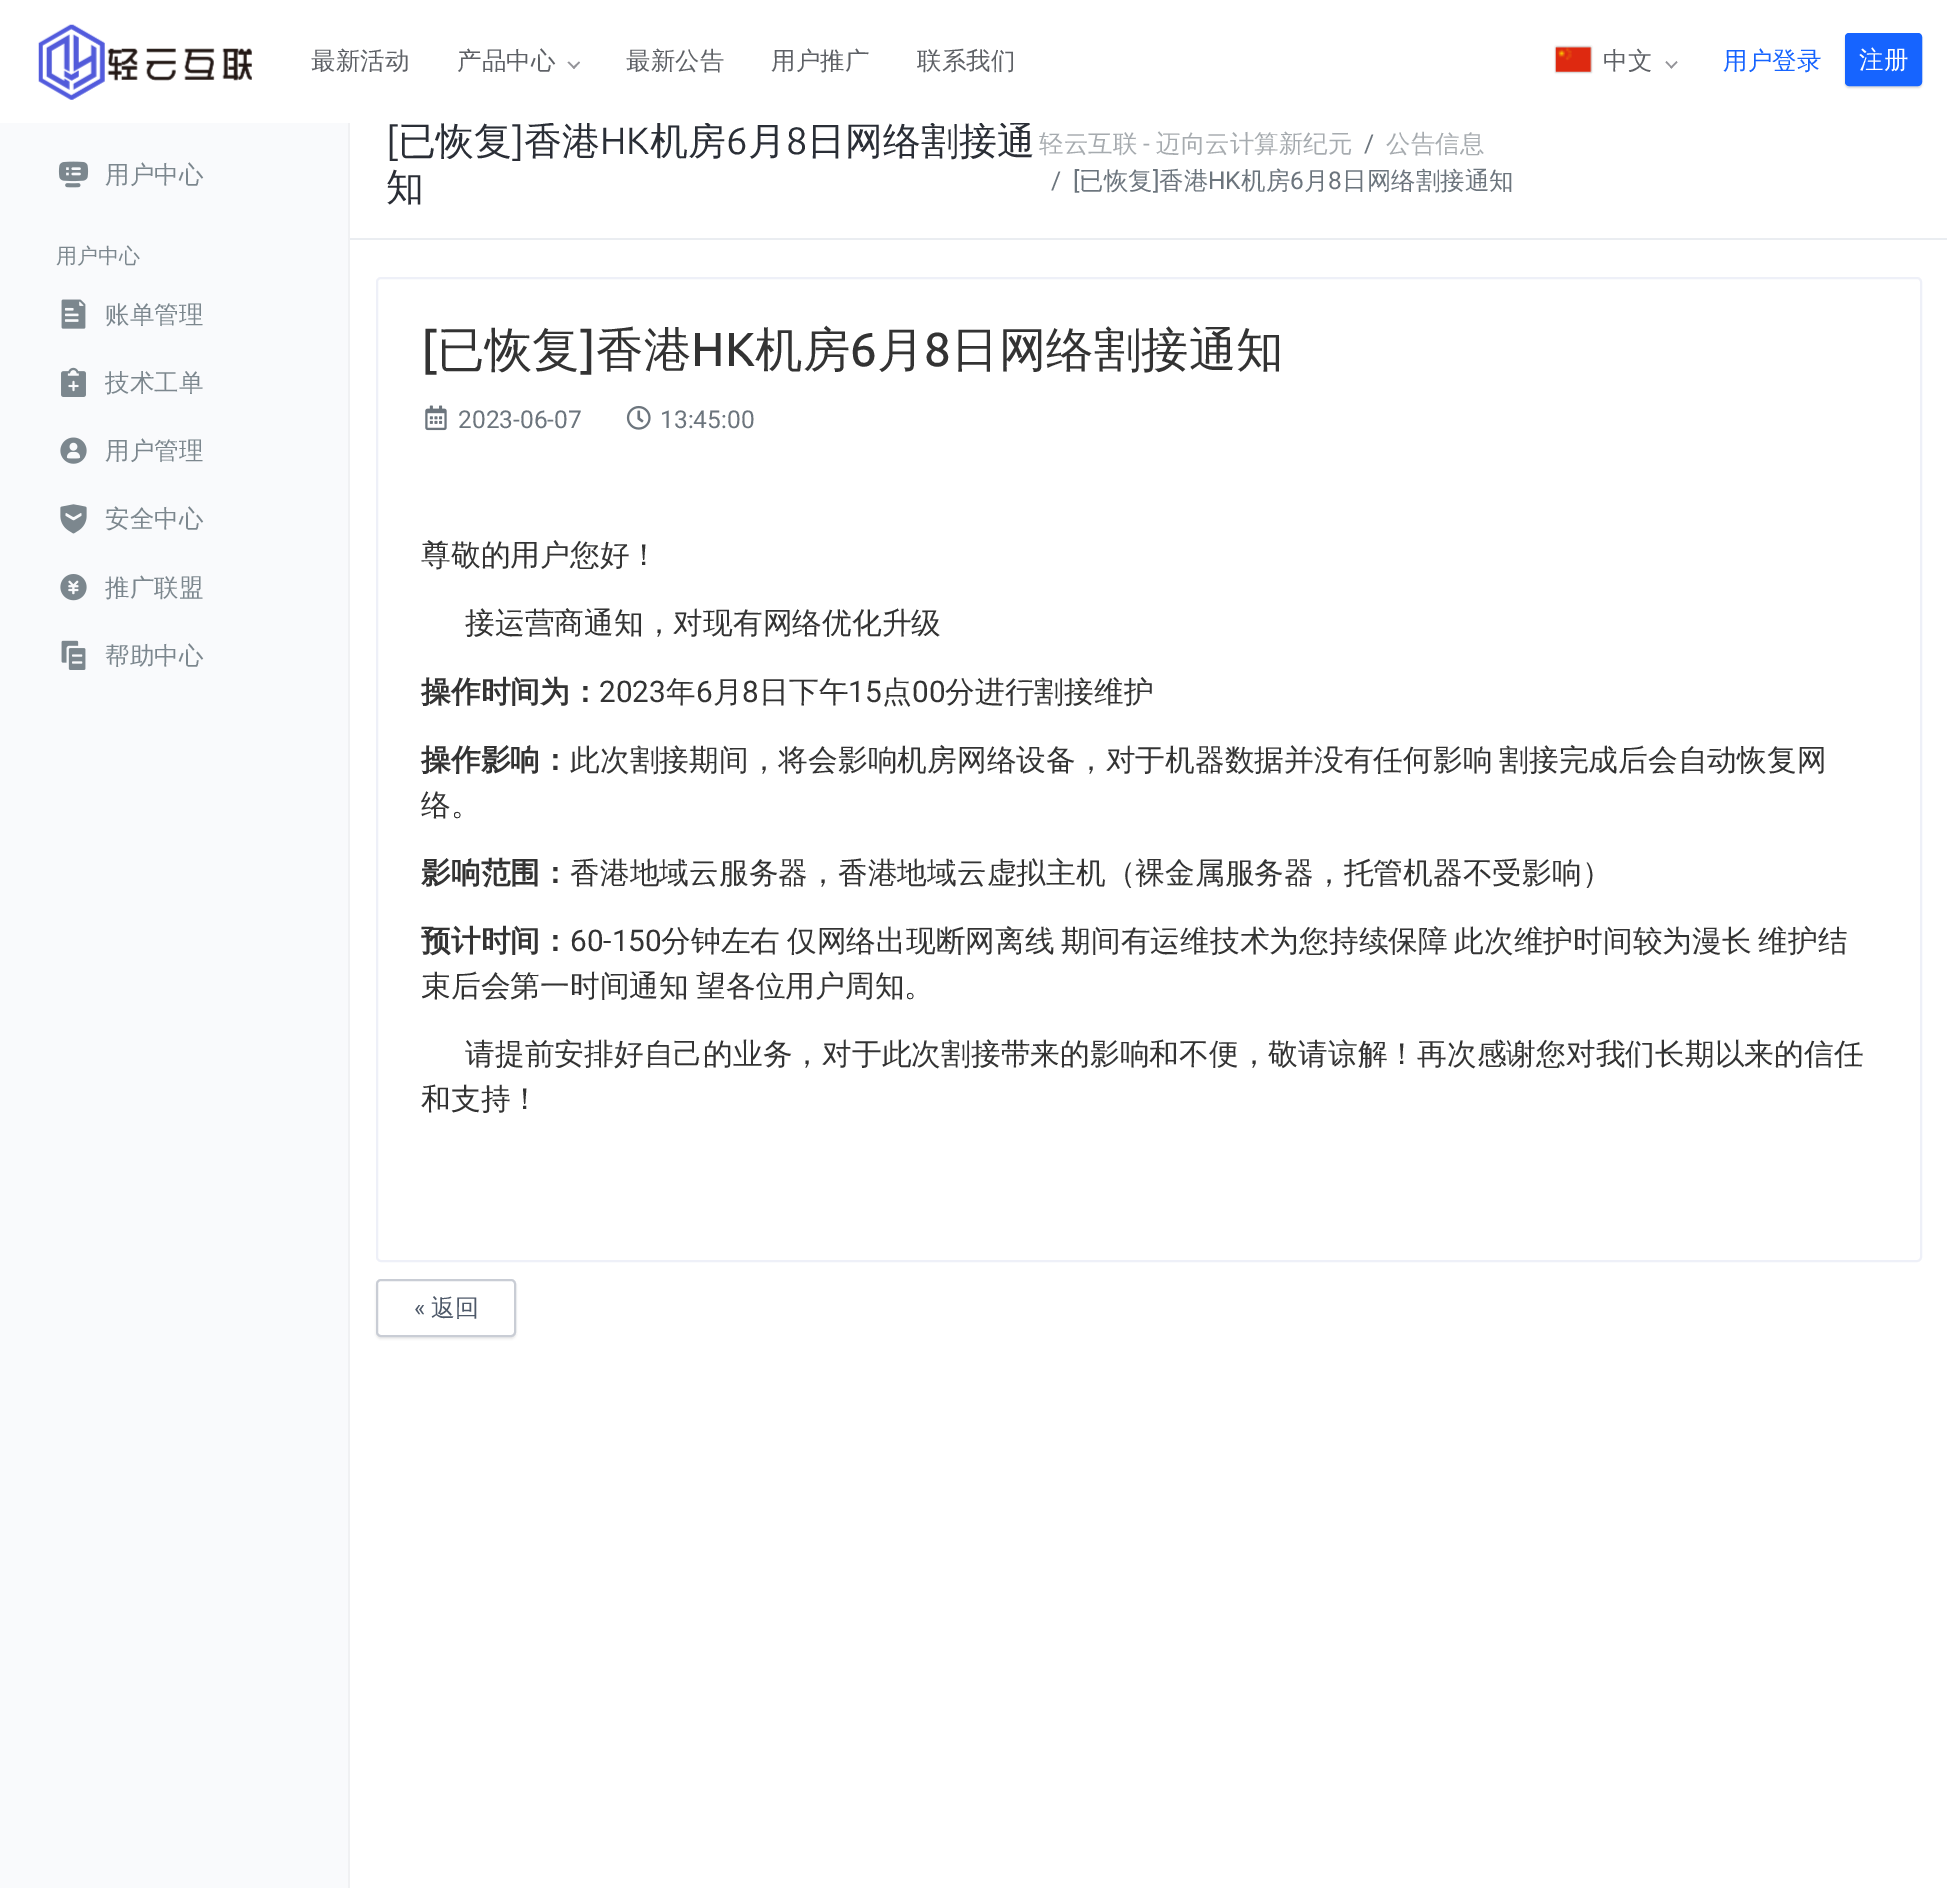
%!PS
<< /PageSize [1947 1888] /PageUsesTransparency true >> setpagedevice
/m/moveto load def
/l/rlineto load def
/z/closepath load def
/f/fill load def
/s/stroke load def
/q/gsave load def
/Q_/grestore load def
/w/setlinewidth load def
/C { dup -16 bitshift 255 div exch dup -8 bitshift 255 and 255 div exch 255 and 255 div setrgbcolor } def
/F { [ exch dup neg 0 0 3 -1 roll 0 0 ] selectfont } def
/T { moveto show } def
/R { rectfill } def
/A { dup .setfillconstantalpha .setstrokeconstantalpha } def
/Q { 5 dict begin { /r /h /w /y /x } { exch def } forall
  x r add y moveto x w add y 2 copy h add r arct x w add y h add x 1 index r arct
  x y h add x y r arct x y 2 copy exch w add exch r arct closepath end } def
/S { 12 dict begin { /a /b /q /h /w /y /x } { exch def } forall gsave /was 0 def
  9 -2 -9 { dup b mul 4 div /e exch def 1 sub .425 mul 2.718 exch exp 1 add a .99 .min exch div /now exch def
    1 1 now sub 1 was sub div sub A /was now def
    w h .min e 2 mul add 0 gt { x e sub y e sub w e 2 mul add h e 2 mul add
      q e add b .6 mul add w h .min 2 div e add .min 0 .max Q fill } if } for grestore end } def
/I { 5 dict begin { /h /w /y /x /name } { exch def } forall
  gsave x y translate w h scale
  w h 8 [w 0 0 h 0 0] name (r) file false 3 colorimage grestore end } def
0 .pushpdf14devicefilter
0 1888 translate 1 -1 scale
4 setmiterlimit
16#FFFFFF C
0 0 1947 1888 R
/WenQuanYiZenHei-Medium 38 F
16#2A2E36 C
(香港) 524 154 T
(机房) 650 154 T
(日网络割接通) 807 154 T
16#FFFFFF C
550 121 481 2 R
(1.rgb) 38 24 214 76 I
/WenQuanYiZenHei-Medium 24.5 F
16#5E6166 C
(最新活动) 311 69 T
(产品中心) 457 69 T
16#949499 C
579 61.5 m 1 1 l -6 6.5 l -1.5 -1.5 l z f
569 61.5 m 6 6 l -1 1.5 l -6.5 -6.5 l z f
16#5E6166 C
(最新公告) 626 69 T
(用户推广) 771 69 T
(联系我们) 917 69 T
16#888888 C
1556 47 35 25 0 1 1 S
16#DBDBDB C
1556 47 35 25 R
(2.rgb) 1555 46 37 26 I
16#5E6166 C
(中文) 1603 69 T
16#949499 C
1676.5 61 m 1 1.5 l -6 6 l -1.5 -1 l z f
1666.5 61 m 6 6.5 l -1 1 l -6 -6 l z f
16#1664FF C
(用户登录) 1723 69 T
16#000000 C
1845 35 77 53 4 1 .15 S
16#1664FF C
1846 34 75 51 3 Q q f Q_
2 w
s
16#FFFFFF C
(注册) 1859 68 T
16#F9FAFC C
0 123 348 1765 R
16#F0F1F3 C
348 123 2 1765 R
(3.rgb) 58 161 31 27 I
16#7C878E C
(用户中心) 105 183 T
/WenQuanYiZenHei-Medium 21 F
(用户中心) 56 263 T
(4.rgb) 61 299 25 30 I
/WenQuanYiZenHei-Medium 24.5 F
(账单管理) 105 323 T
(5.rgb) 61 367 25 30 I
(技术工单) 105 391 T
(6.rgb) 60 437 27 27 I
(用户管理) 105 459 T
(7.rgb) 60 504 27 30 I
(安全中心) 105 527 T
(8.rgb) 60 574 27 27 I
(推广联盟) 105 596 T
(9.rgb) 61 640 25 30 I
(帮助中心) 105 664 T
16#EAEDF1 C
350 238 1597 2 R
/Ubuntu-Regular 38 F
16#2A2E36 C
([) 386 154 T
/WenQuanYiZenHei-Medium 38 F
(已恢复) 398 154 T
/Ubuntu-Regular 38 F
(]) 512 154 T
(HK) 600 154 T
(6) 726 154 T
/WenQuanYiZenHei-Medium 38 F
(月) 748 154 T
/Ubuntu-Regular 38 F
(8) 786 154 T
/WenQuanYiZenHei-Medium 38 F
(知) 386 200 T
/WenQuanYiZenHei-Medium 24.5 F
16#A6ABAF C
(轻云互联) 1039 152 T
/Roboto-Regular 24.5 F
(-) 1143 152 T
/WenQuanYiZenHei-Medium 24.5 F
(迈向云计算新纪元) 1156 152 T
/Roboto-Regular 24.5 F
16#6C757D C
(/) 1364 152 T
/WenQuanYiZenHei-Medium 24.5 F
16#A6ABAF C
(公告信息) 1386 152 T
/Roboto-Regular 24.5 F
16#6C757D C
(/) 1051 189 T
([) 1073 189 T
/WenQuanYiZenHei-Medium 24.5 F
(已恢复) 1079 189 T
/Roboto-Regular 24.5 F
(]) 1153 189 T
/WenQuanYiZenHei-Medium 24.5 F
(香港) 1159 189 T
/Roboto-Regular 24.5 F
(HK) 1208 189 T
/WenQuanYiZenHei-Medium 24.5 F
(机房) 1241 189 T
/Roboto-Regular 24.5 F
(6) 1290 189 T
/WenQuanYiZenHei-Medium 24.5 F
(月) 1304 189 T
/Roboto-Regular 24.5 F
(8) 1328 189 T
/WenQuanYiZenHei-Medium 24.5 F
(日网络割接通知) 1342 189 T
16#EEF0F8 C
377 278 1544 983 4 Q s
/Ubuntu-Medium 47.5 F
16#333333 C
([) 421 366 T
/WenQuanYiZenHei-Medium 47.5 F
(已恢复) 437 366 T
/Ubuntu-Medium 47.5 F
(]) 580 366 T
/WenQuanYiZenHei-Medium 47.5 F
(香港) 596 366 T
/Ubuntu-Medium 47.5 F
(HK) 691 366 T
/WenQuanYiZenHei-Medium 47.5 F
(机房) 755 366 T
/Ubuntu-Medium 47.5 F
(6) 850 366 T
/WenQuanYiZenHei-Medium 47.5 F
(月) 877 366 T
/Ubuntu-Medium 47.5 F
(8) 924 366 T
/WenQuanYiZenHei-Medium 47.5 F
(日网络割接通知) 951 366 T
(10.rgb) 425 405 22 26 I
/Roboto-Regular 24.5 F
16#6C757D C
(2023-06-07) 458 428 T
(11.rgb) 626 405 25 25 I
(13:45:00) 660 428 T
/WenQuanYiZenHei-Medium 29.75 F
16#333333 C
(尊敬的用户您好！) 421 565 T
(接运营商通知，对现有网络优化升级) 465 633 T
/WenQuanYiZenHei-Bold 29.75 F
(操作时间为：) 421 702 T
/Roboto-Regular 29.75 F
(2023) 599 702 T
/WenQuanYiZenHei-Medium 29.75 F
(年) 666 702 T
/Roboto-Regular 29.75 F
(6) 696 702 T
/WenQuanYiZenHei-Medium 29.75 F
(月) 713 702 T
/Roboto-Regular 29.75 F
(8) 742 702 T
/WenQuanYiZenHei-Medium 29.75 F
(日下午) 759 702 T
/Roboto-Regular 29.75 F
(15) 848 702 T
/WenQuanYiZenHei-Medium 29.75 F
(点) 882 702 T
/Roboto-Regular 29.75 F
(00) 912 702 T
/WenQuanYiZenHei-Medium 29.75 F
(分进行割接维护) 945 702 T
/WenQuanYiZenHei-Bold 29.75 F
(操作影响：) 421 770 T
/WenQuanYiZenHei-Medium 29.75 F
570 770 m -2 0 32 (此次割接期间，将会影响机房网络设备，对于机器数据并没有任何影响 割接完成后会自动恢复网) widthshow
(络。) 421 815 T
/WenQuanYiZenHei-Bold 29.75 F
(影响范围：) 421 883 T
/WenQuanYiZenHei-Medium 29.75 F
(香港地域云服务器，香港地域云虚拟主机（裸金属服务器，托管机器不受影响）) 570 883 T
/WenQuanYiZenHei-Bold 29.75 F
(预计时间：) 421 951 T
/Roboto-Regular 29.75 F
(60-150) 570 951 T
/WenQuanYiZenHei-Medium 29.75 F
661 951 m -2 0 32 (分钟左右 仅网络出现断网离线) widthshow
(期间有运维技术为您持续保障) 1061 951 T
1454 951 m -2 0 32 (此次维护时间较为漫长 维护结) widthshow
(束后会第一时间通知) 421 996 T
(望各位用户周知。) 696 996 T
(请提前安排好自己的业务，对于此次割接带来的影响和不便，敬请谅解！再次感谢您对我们长期以来的信任) 465 1064 T
(和支持！) 421 1109 T
16#000000 C
376 1281 140 58 5 1 .08 S
16#FFFFFF C
377 1280 138 56 4 Q q f Q_
16#C9CDD5 C
s
/Roboto-Regular 24 F
16#4E5969 C
(«) 414 1316 T
/WenQuanYiZenHei-Medium 24 F
(返回) 431 1316 T
.poppdf14devicefilter showpage
